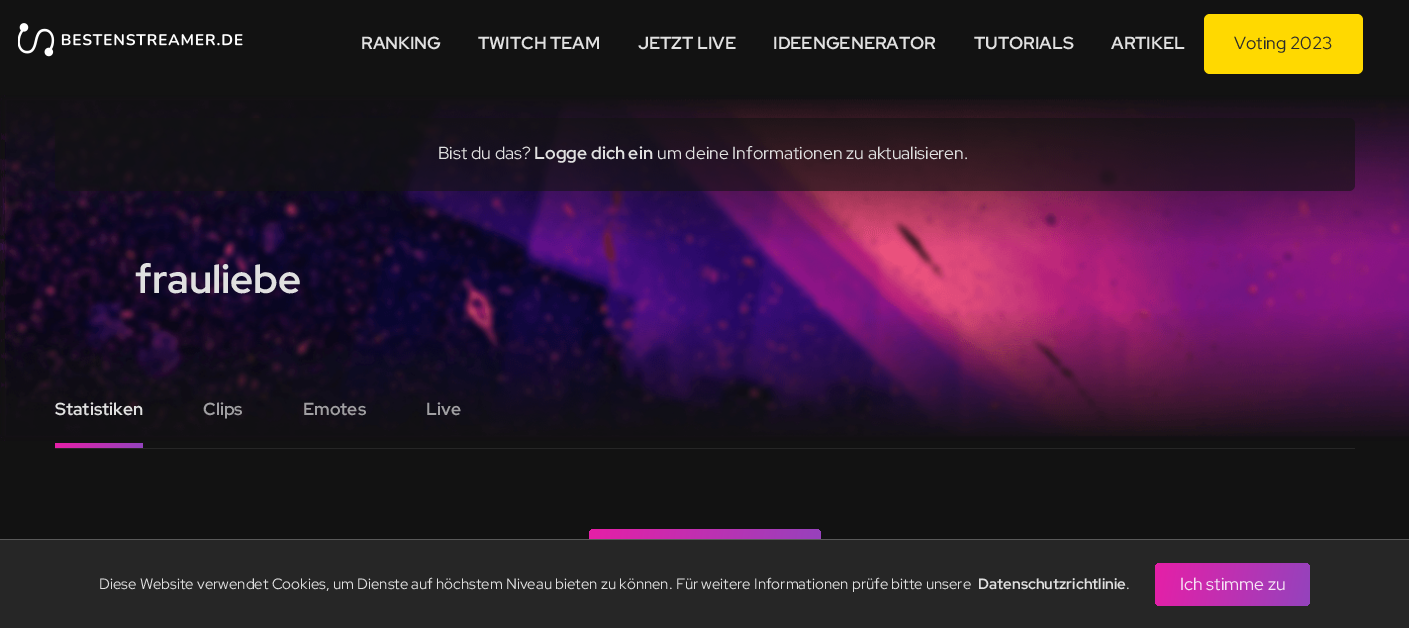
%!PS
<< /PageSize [1409 628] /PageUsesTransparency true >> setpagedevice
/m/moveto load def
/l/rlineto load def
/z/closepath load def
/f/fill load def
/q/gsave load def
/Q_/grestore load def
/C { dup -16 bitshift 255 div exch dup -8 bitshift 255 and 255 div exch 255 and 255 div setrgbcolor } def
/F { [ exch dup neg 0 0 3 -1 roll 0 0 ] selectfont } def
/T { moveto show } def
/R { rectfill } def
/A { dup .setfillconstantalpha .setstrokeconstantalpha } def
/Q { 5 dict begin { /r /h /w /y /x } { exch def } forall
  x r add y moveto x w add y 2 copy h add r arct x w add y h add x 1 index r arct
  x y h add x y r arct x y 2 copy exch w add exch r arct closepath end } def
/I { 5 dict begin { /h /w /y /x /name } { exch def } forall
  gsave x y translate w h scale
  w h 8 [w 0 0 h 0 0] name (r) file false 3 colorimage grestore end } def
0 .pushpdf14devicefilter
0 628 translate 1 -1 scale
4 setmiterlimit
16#121212 C
0 0 1409 628 R
(1.rgb) 18 23 225 34 I
/RedHatDisplay-Bold 17.5 F
16#E0E0E0 C
(RANKING) 361 49 T
(TWITCH TEAM) 478 49 T
(JETZT LIVE) 638 49 T
(IDEENGENERATOR) 773 49 T
(TUTORIALS) 974 49 T
(ARTIKEL) 1111 49 T
16#FFD900 C
1204 14 159 60 6 Q f
/RedHatDisplay-Regular 17.5 F
16#2B2B2B C
(Voting 2023) 1234 49 T
(2.rgb) 0 95 1409 346 I
0.6 A
16#121212 C
55 118 1300 73 6 Q f
1 A
16#E0E0E0 C
(Bist du das?) 438 159 T
/RedHatDisplay-Bold 17.5 F
(Logge dich ein) 534 159 T
/RedHatDisplay-Regular 17.5 F
(um deine Informationen zu aktualisieren.) 657 159 T
/RedHatDisplay-Bold 40 F
(frauliebe) 135 293 T
16#262626 C
55 448 1300 1 R
/RedHatDisplay-Bold 17.5 F
16#E0E0E0 C
(Statistiken) 55 415 T
q 55 443 m 88 0 l 0 5 l -88 0 l z clip newpath
<< /ShadingType 2 /ColorSpace /DeviceRGB /Coords [56 437 141 453] /Extend [true true] /Function << /FunctionType 2 /Domain [0 1] /C0 [.902 .122 .655] /C1 [.58 .263 .741] /N 1 >> >> shfill Q_
16#A09FA2 C
(Clips) 203 415 T
(Emotes) 303 415 T
(Live) 426 415 T
q 589 529 232 56 6 Q clip newpath
<< /ShadingType 2 /ColorSpace /DeviceRGB /Coords [588 534 822 580] /Extend [true true] /Function << /FunctionType 2 /Domain [0 1] /C0 [.902 .122 .655] /C1 [.58 .263 .741] /N 1 >> >> shfill Q_
16#262626 C
0 540 1409 88 R
16#595959 C
0 539 1409 1 R
/RedHatDisplay-Regular 15 F
16#E0E0E0 C
(Diese Website verwendet Cookies, um Dienste auf höchstem Niveau bieten zu können. Für weitere Informationen prüfe bitte unsere) 99 589 T
/RedHatDisplay-Bold 15 F
(Datenschutzrichtlinie) 978 589 T
/RedHatDisplay-Regular 15 F
(.) 1126 589 T
q 1155 563 155 43 6 Q clip newpath
<< /ShadingType 2 /ColorSpace /DeviceRGB /Coords [1154 569 1311 600] /Extend [true true] /Function << /FunctionType 2 /Domain [0 1] /C0 [.902 .122 .655] /C1 [.58 .263 .741] /N 1 >> >> shfill Q_
/RedHatDisplay-Regular 17.5 F
16#F6E4F5 C
(Ich stimme zu) 1180 590 T
.poppdf14devicefilter showpage
